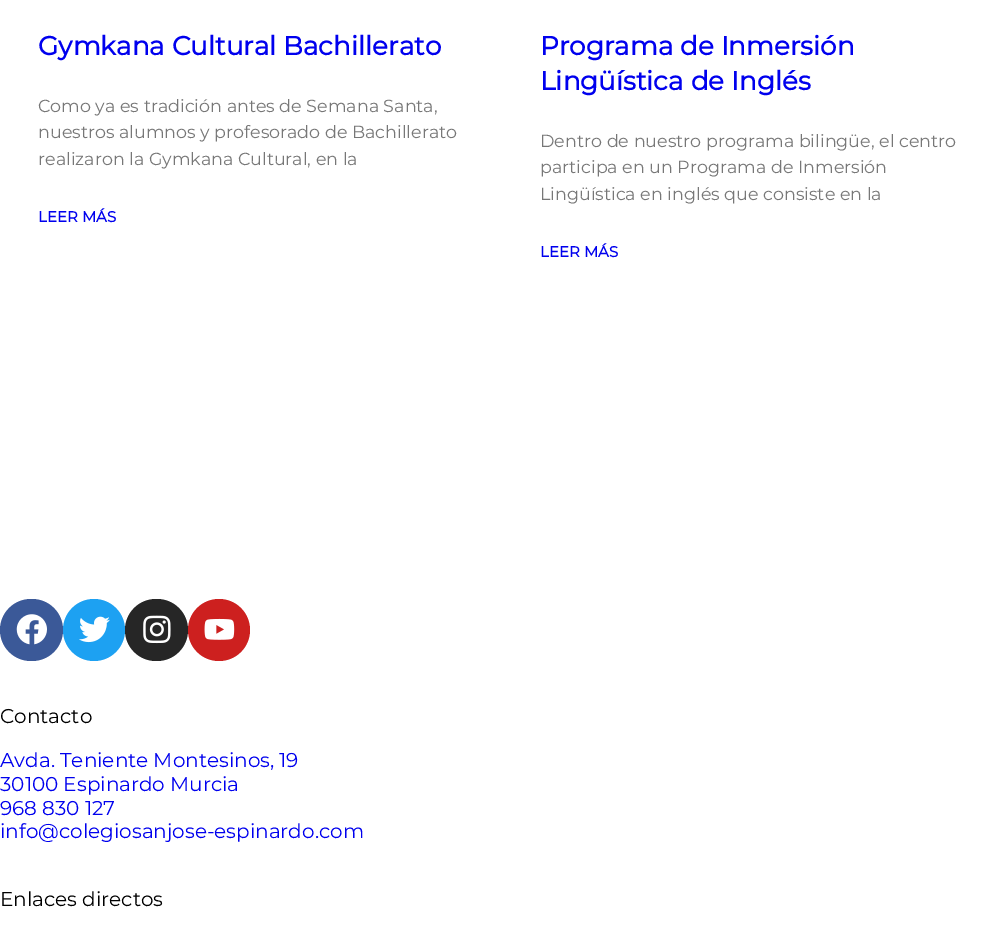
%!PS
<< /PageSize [1005 929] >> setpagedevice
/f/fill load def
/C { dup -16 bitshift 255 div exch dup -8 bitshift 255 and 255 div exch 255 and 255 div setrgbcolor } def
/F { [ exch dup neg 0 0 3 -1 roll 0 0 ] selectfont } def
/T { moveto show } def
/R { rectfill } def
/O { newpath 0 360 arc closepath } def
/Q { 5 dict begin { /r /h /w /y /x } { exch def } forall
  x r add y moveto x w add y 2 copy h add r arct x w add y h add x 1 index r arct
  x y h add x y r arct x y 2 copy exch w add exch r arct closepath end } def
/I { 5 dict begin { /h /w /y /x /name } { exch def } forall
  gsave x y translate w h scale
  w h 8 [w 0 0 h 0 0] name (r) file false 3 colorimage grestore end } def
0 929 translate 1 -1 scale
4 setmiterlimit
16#FFFFFF C
0 0 1005 929 R
/Montserrat-Bold 26.25 F
16#0000EE C
(Gymkana Cultural Bachillerato) 38 55 T
/Montserrat-Thin 17.5 F
16#777777 C
(Como ya es tradición antes de Semana Santa,) 38 112 T
(nuestros alumnos y profesorado de Bachillerato) 38 138 T
(realizaron la Gymkana Cultural, en la) 38 165 T
/Montserrat-Bold 15 F
16#0000EE C
(LEER MÁS) 38 222 T
/Montserrat-Bold 26.25 F
(Programa de Inmersión) 540 55 T
(Lingüística de Inglés) 540 90 T
/Montserrat-Thin 17.5 F
16#777777 C
(Dentro de nuestro programa bilingüe, el centro) 540 147 T
(participa en un Programa de Inmersión) 540 173 T
(Lingüística en inglés que consiste en la) 540 200 T
/Montserrat-Bold 15 F
16#0000EE C
(LEER MÁS) 540 257 T
16#3B5998 C
0 599 63 62 31 Q f
(1.rgb) 16 614 31 31 I
16#1DA1F2 C
94 630 31 O f
(2.rgb) 79 616 31 27 I
16#262626 C
125 599 63 62 31 Q f
(3.rgb) 143 615 28 29 I
16#CD201F C
219 630 31 O f
(4.rgb) 204 618 31 22 I
/Montserrat-Thin 20 F
16#000000 C
(Contacto) 0 723 T
16#0000EE C
(Avda. Teniente Montesinos, 19) 0 767 T
(30100 Espinardo Murcia) 0 791 T
(968 830 127) 0 815 T
(info@colegiosanjose-espinardo.com) 0 838 T
16#000000 C
(Enlaces directos) 0 906 T
showpage
